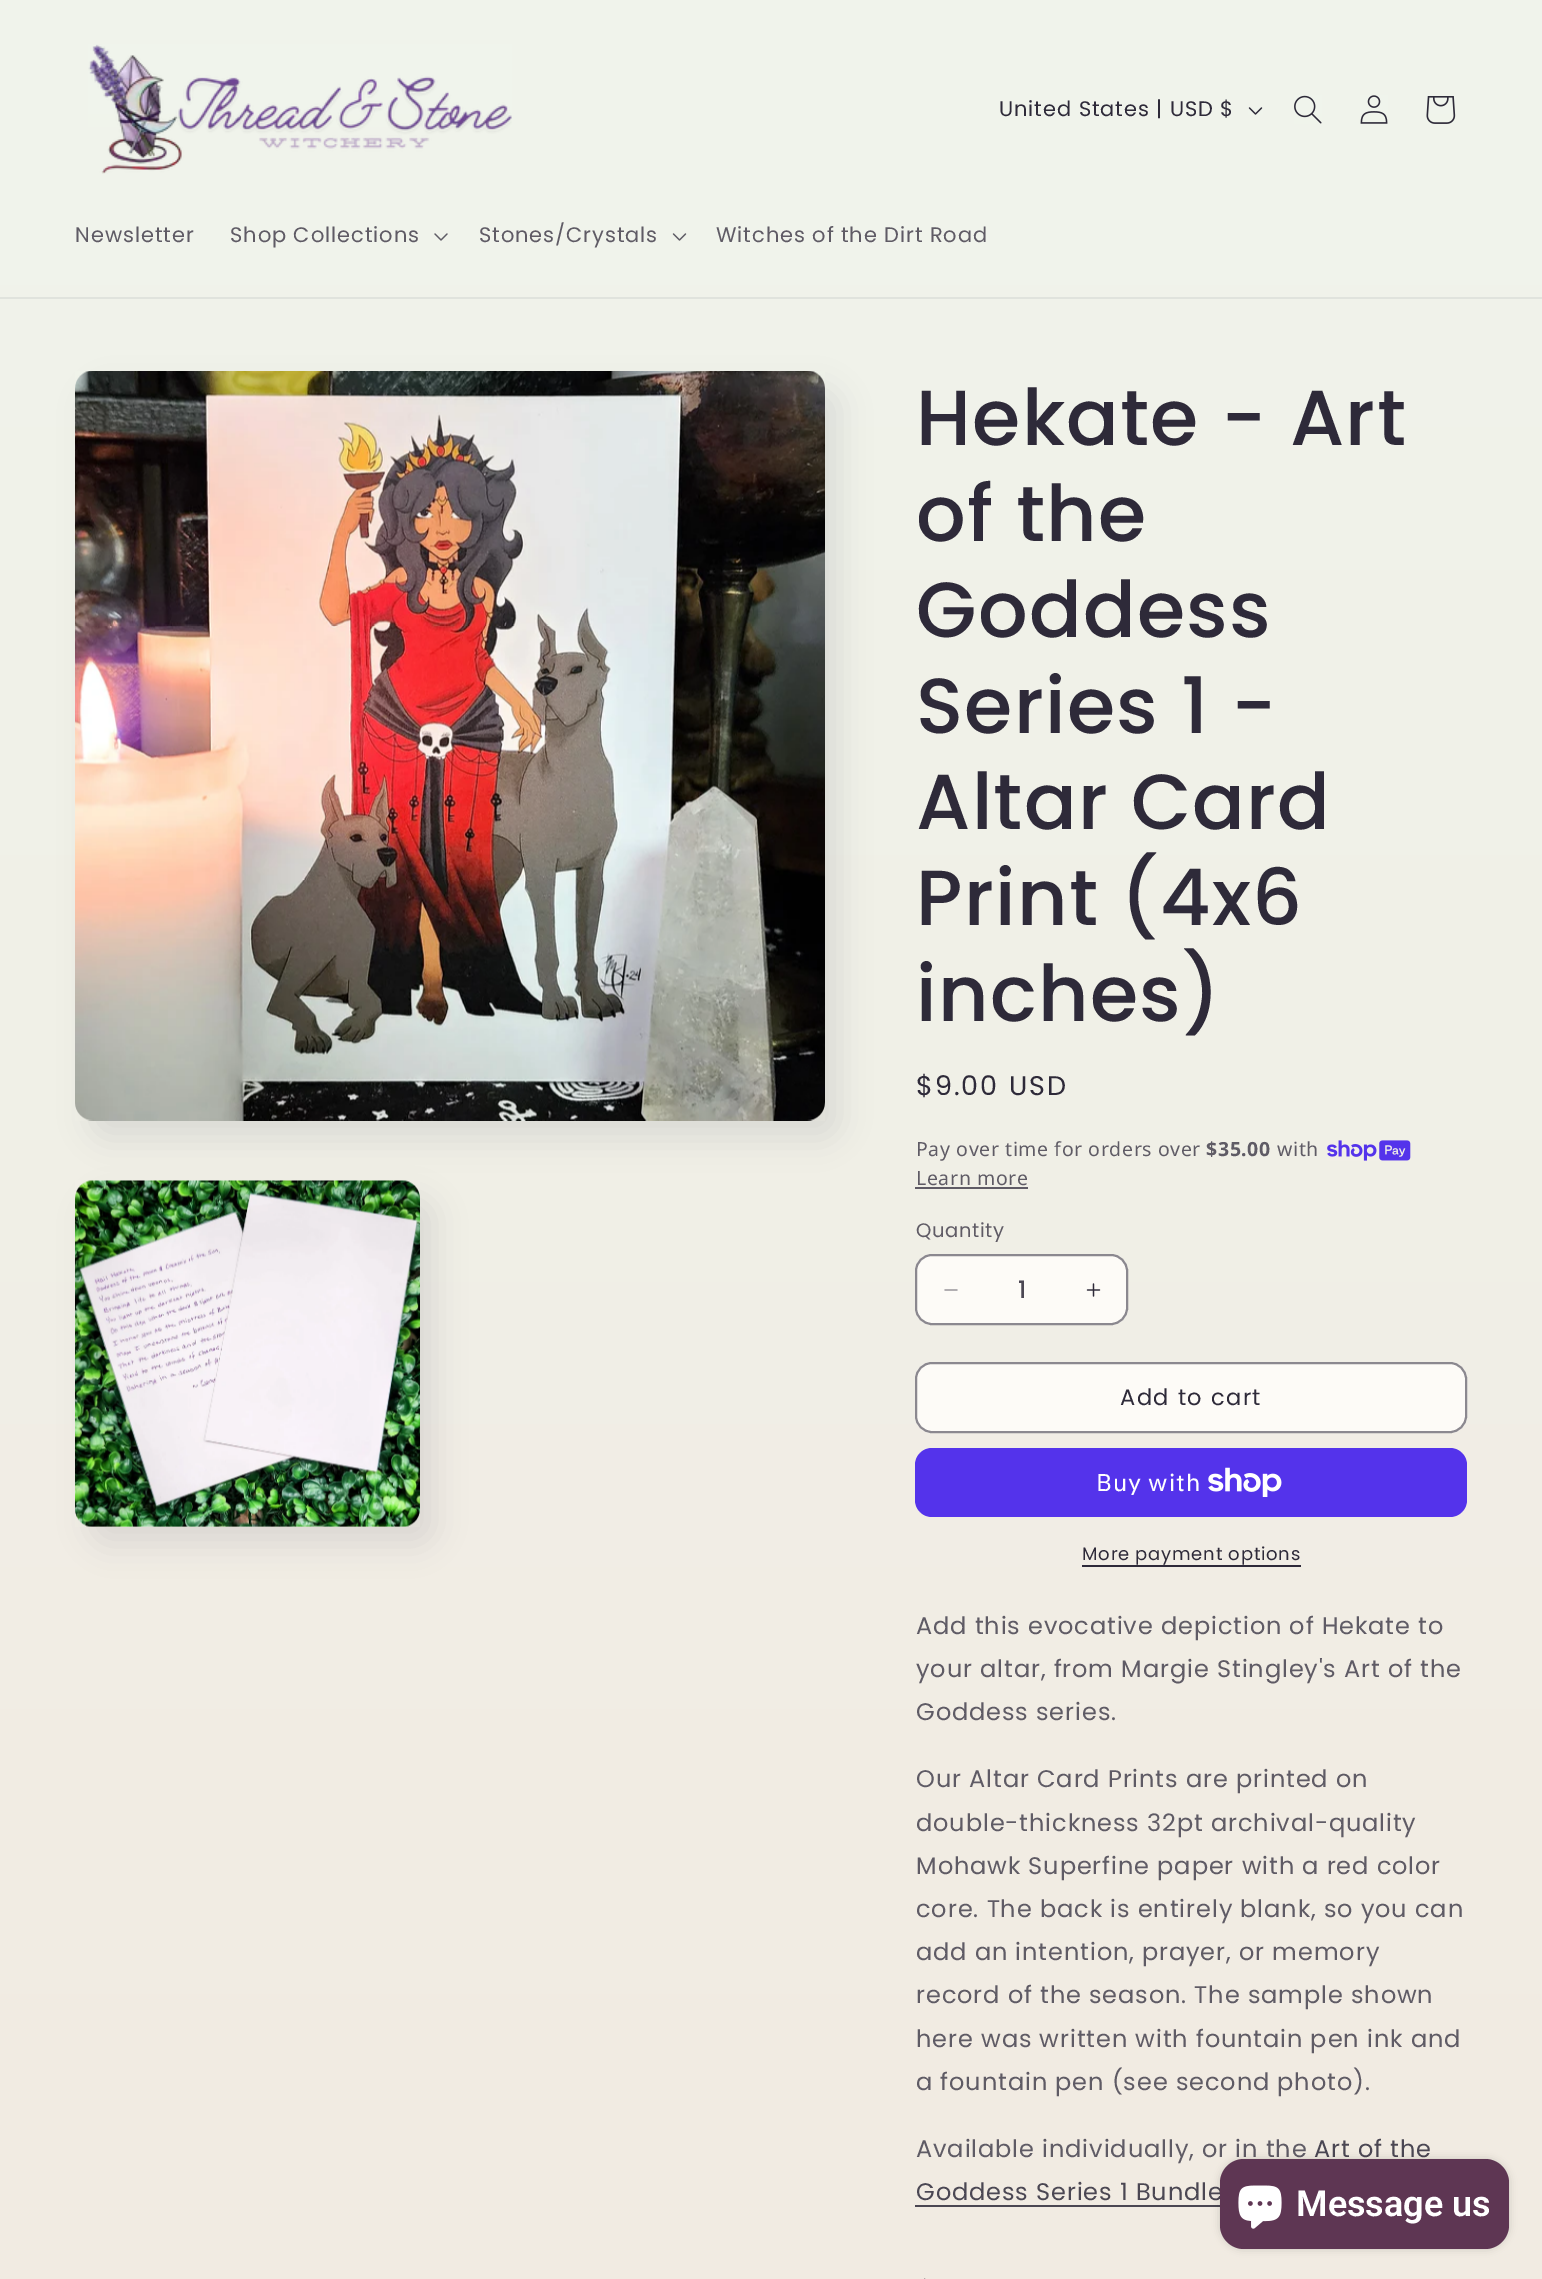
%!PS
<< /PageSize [1542 2279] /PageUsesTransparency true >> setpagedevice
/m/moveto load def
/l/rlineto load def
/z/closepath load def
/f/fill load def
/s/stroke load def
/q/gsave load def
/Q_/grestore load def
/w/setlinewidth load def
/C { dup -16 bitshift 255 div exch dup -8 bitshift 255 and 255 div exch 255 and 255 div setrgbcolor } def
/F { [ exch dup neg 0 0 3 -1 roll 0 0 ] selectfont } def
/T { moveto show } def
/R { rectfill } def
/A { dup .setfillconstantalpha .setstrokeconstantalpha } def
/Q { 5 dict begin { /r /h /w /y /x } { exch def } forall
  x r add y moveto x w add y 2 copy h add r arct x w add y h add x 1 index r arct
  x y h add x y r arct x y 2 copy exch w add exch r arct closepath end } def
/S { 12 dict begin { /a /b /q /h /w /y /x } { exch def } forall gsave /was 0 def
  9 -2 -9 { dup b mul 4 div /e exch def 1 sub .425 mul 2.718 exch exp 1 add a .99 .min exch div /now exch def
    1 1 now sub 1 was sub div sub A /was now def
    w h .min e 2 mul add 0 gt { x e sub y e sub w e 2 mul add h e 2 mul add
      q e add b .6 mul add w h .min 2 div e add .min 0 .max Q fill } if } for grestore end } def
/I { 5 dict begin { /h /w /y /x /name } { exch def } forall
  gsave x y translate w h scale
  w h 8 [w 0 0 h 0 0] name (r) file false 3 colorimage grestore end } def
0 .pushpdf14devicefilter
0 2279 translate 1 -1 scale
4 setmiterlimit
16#FFFFFF C
0 0 1542 2279 R
q 0 0 m 1542 0 l 0 2279 l -1542 0 l z clip newpath
<< /ShadingType 2 /ColorSpace /DeviceRGB /Coords [771 0 771 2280] /Extend [true true] /Function << /FunctionType 2 /Domain [0 1] /C0 [.941 .957 .925] /C1 [.945 .922 .886] /N 1 >> >> shfill Q_
16#E0E3DD C
0 297 1542 2 R
(1.rgb) 88 44 424 130 I
/Poppins-Regular 21 F
16#2E2A39 C
999 116 m .9 0 (United States | USD $) ashow
(2.rgb) 1248 107 15 8 I
(3.rgb) 1294 95 28 29 I
(4.rgb) 1360 95 28 29 I
(5.rgb) 1426 96 30 28 I
16#5F5B65 C
75 242 m .9 0 (Newsletter) ashow
230 242 m .9 0 (Shop Collections) ashow
(6.rgb) 434 233 14 8 I
479 242 m .9 0 (Stones/Crystals) ashow
(7.rgb) 672 233 15 8 I
716 242 m .9 0 (Witches of the Dirt Road) ashow
16#2E2A39 C
90 389 750 750 18 15 .1 S
q 75 371 750 750 18 Q clip newpath
<< /ShadingType 2 /ColorSpace /DeviceRGB /Coords [771 0 771 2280] /Extend [true true] /Function << /FunctionType 2 /Domain [0 1] /C0 [.941 .957 .925] /C1 [.945 .922 .886] /N 1 >> >> shfill Q_
(8.rgb) 75 371 750 750 I
90 1199 345 346 18 15 .1 S
q 75 1181 345 346 18 Q clip newpath
<< /ShadingType 2 /ColorSpace /DeviceRGB /Coords [771 0 771 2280] /Extend [true true] /Function << /FunctionType 2 /Domain [0 1] /C0 [.941 .957 .925] /C1 [.945 .922 .886] /N 1 >> >> shfill Q_
(9.rgb) 75 1180 345 347 I
/Poppins-Medium 78 F
916 445 m 1.25 0 (Hekate - Art) ashow
916 541 m 1.25 0 (of the) ashow
916 637 m 1.25 0 (Goddess) ashow
916 733 m 1.25 0 (Series 1 -) ashow
916 829 m 1.25 0 (Altar Card) ashow
916 925 m 1.25 0 (Print \(4x6) ashow
916 1021 m 1.25 0 (inches\)) ashow
/Poppins-Regular 27 F
916 1095 m 2 0 ($9.00 USD) ashow
/NotoSans-Regular 19.5 F
16#5F5B65 C
916 1156 m .6 0 (Pay over time for orders over) ashow
/NotoSans-Bold 19.5 F
1206 1156 m .6 0 ($35.00) ashow
/NotoSans-Regular 19.5 F
1277 1156 m .6 0 (with) ashow
(10.rgb) 1327 1140 84 21 I
916 1185 m .6 0 (Learn more) ashow
915 1187 113 2 R
/Poppins-Regular 19.5 F
916 1237 m .6 0 (Quantity) ashow
16#FDFBF7 C
915 1254 213 71 17 Q f
(11.rgb) 944 1289 14 2 I
(12.rgb) 1086 1283 15 14 I
0.55 A
16#2E2A39 C
2 w
916 1255 211 69 16 Q s
/Poppins-Medium 24 F
1 A
16#4B4753 C
(1) 1018 1298 T
16#FDFBF7 C
915 1362 552 71 17 Q f
916 1363 550 69 16 Q s
0.55 A
16#2E2A39 C
916 1363 550 69 16 Q s
/Poppins-Regular 22.5 F
1 A
1120 1405 m 1.5 0 (Add to cart) ashow
16#5433EB C
915 1448 552 69 17 Q f
/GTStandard-Regular 24 F
16#FFFFFF C
1096 1491 m .9 0 (Buy with) ashow
(13.rgb) 1208 1467 74 30 I
/Poppins-Regular 18 F
16#2E2A39 C
1082 1560 m .75 0 (More payment options) ashow
1082 1565 219 2 R
/Poppins-Regular 24 F
16#5F5B65 C
916 1634 m .9 0 (Add this evocative depiction of Hekate to) ashow
916 1677 m .9 0 (your altar, from Margie Stingley's Art of the) ashow
916 1720 m .9 0 (Goddess series.) ashow
916 1787 m .9 0 (Our Altar Card Prints are printed on) ashow
916 1831 m .9 0 (double-thickness 32pt archival-quality) ashow
916 1874 m .9 0 (Mohawk Superfine paper with a red color) ashow
916 1917 m .9 0 (core. The back is entirely blank, so you can) ashow
916 1960 m .9 0 (add an intention, prayer, or memory) ashow
916 2003 m .9 0 (record of the season. The sample shown) ashow
916 2047 m .9 0 (here was written with fountain pen ink and) ashow
916 2090 m .9 0 (a fountain pen \(see second photo\).) ashow
916 2157 m .9 0 (Available individually, or in the) ashow
16#4B4753 C
1314 2157 m .9 0 (Art of the) ashow
916 2200 m .9 0 (Goddess Series 1 Bundle) ashow
16#4B4752 C
915 2205 309 2 R
(14.rgb) 924 2278 2 1 I
16#000000 C
1220 2159 289 90 24 4 .15 S
16#5E3653 C
1220 2159 289 90 24 Q f
(15.rgb) 1238 2185 44 44 I
/Roboto-SemiBold 36 F
16#FFFFFF C
(Message us) 1296 2216 T
.poppdf14devicefilter showpage
